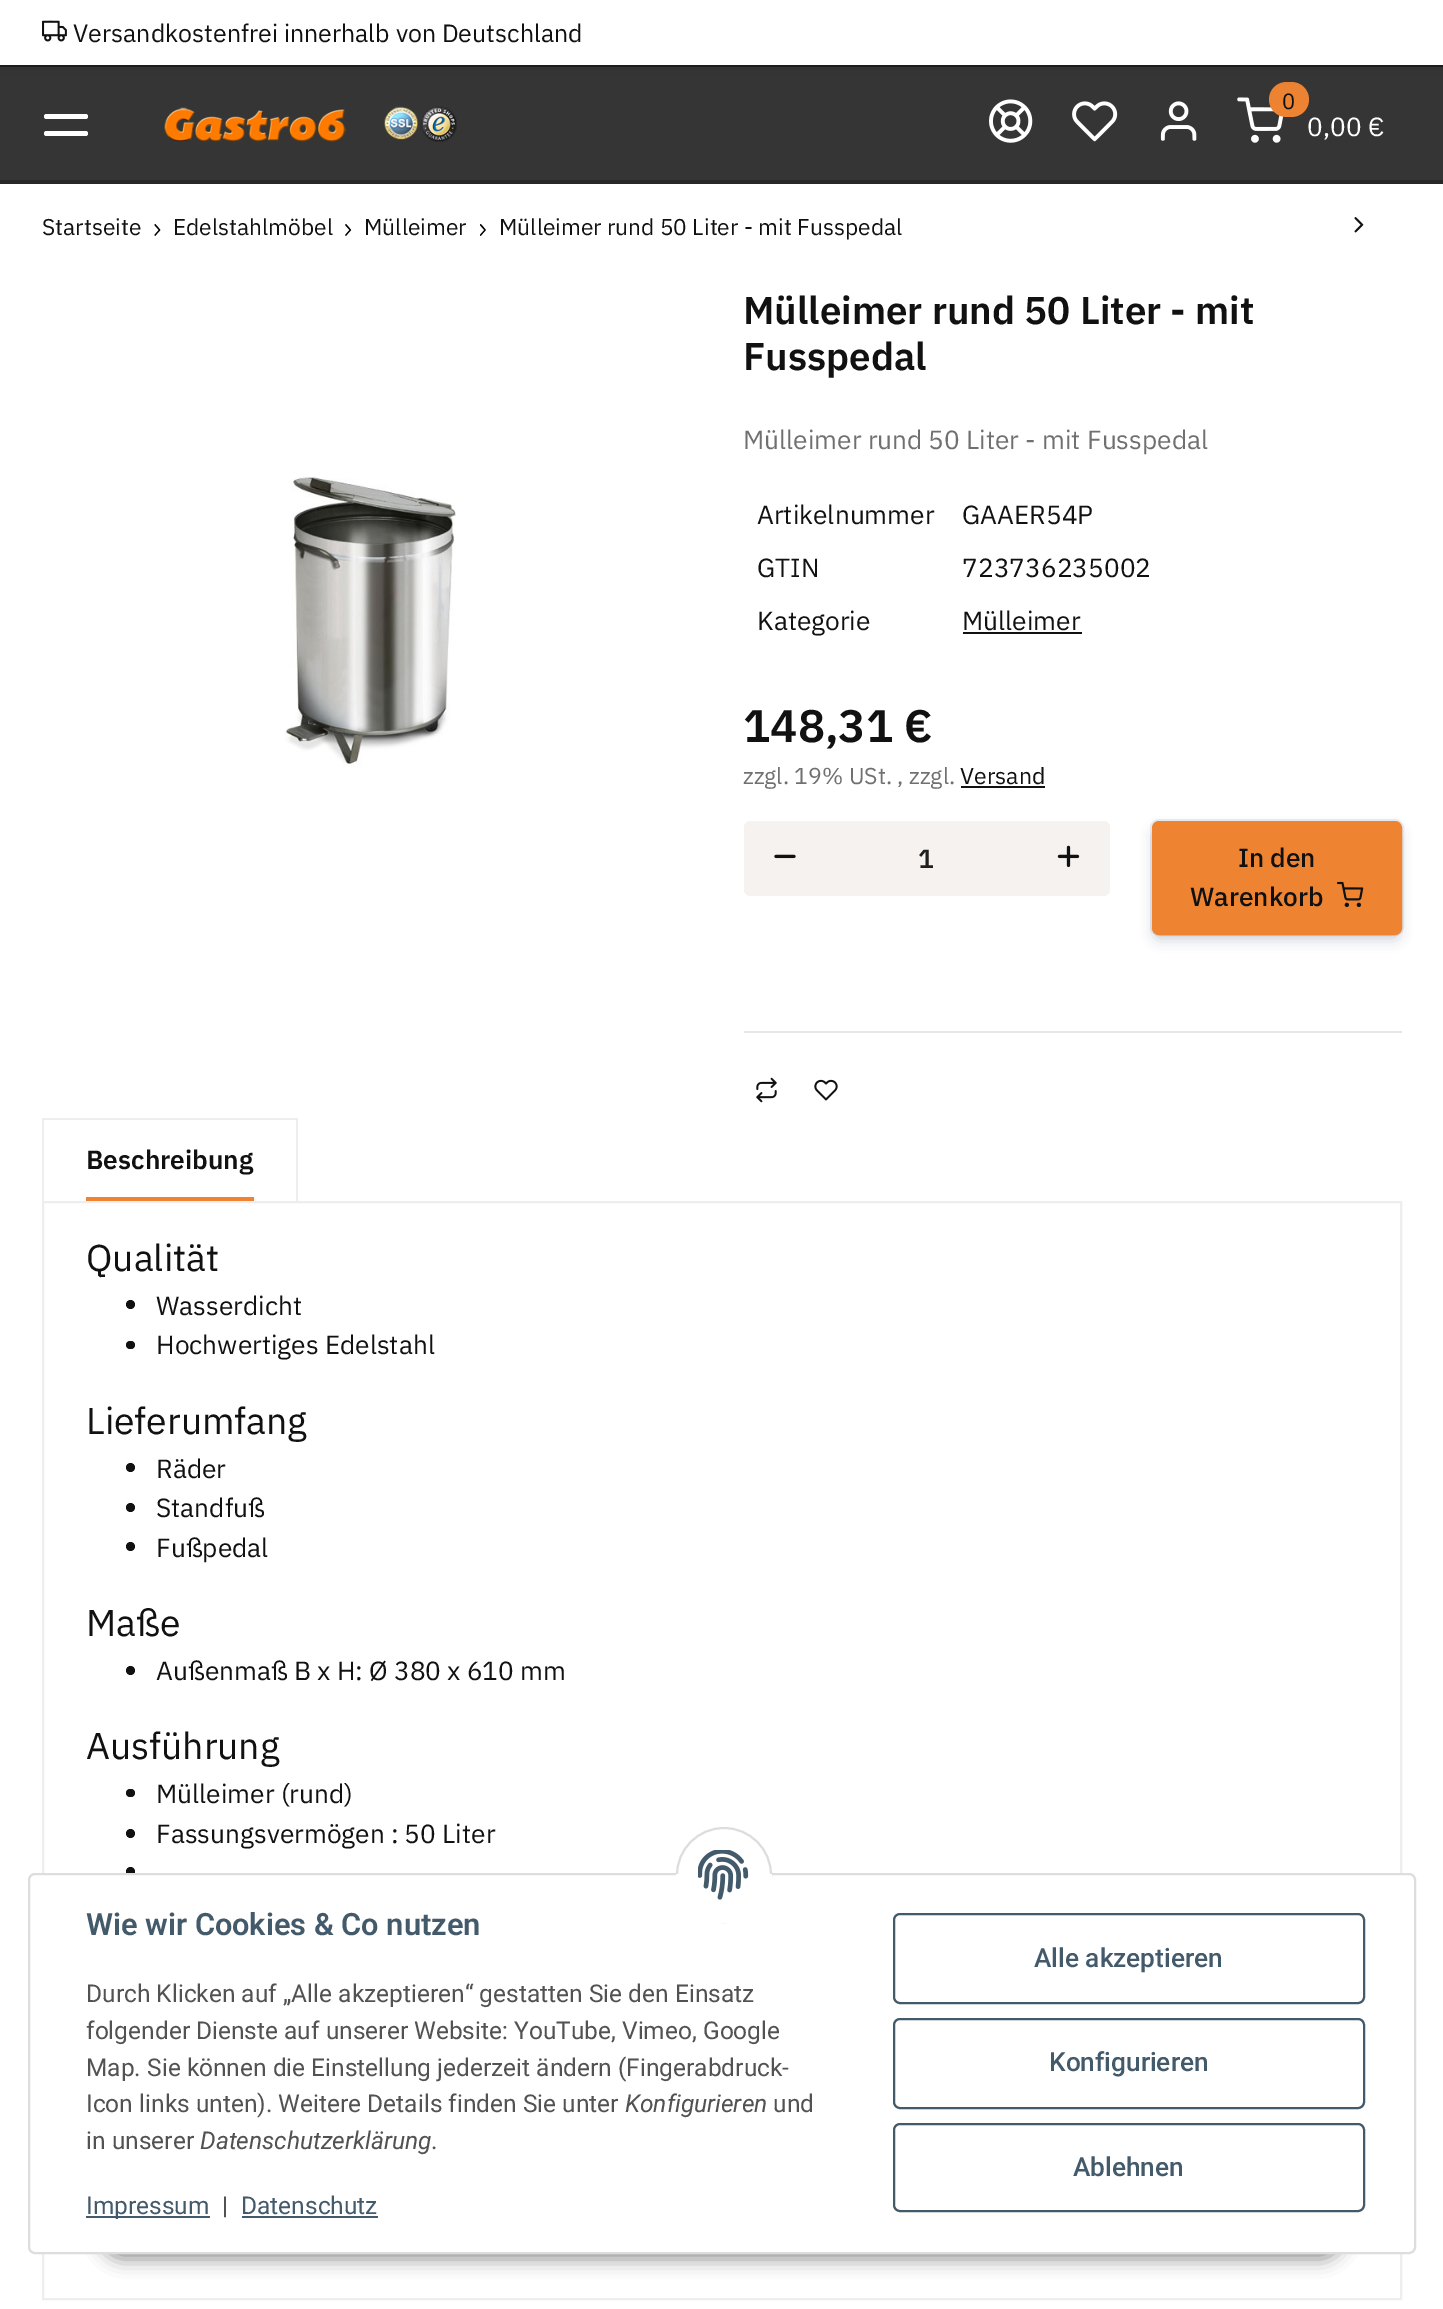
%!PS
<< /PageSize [1443 2309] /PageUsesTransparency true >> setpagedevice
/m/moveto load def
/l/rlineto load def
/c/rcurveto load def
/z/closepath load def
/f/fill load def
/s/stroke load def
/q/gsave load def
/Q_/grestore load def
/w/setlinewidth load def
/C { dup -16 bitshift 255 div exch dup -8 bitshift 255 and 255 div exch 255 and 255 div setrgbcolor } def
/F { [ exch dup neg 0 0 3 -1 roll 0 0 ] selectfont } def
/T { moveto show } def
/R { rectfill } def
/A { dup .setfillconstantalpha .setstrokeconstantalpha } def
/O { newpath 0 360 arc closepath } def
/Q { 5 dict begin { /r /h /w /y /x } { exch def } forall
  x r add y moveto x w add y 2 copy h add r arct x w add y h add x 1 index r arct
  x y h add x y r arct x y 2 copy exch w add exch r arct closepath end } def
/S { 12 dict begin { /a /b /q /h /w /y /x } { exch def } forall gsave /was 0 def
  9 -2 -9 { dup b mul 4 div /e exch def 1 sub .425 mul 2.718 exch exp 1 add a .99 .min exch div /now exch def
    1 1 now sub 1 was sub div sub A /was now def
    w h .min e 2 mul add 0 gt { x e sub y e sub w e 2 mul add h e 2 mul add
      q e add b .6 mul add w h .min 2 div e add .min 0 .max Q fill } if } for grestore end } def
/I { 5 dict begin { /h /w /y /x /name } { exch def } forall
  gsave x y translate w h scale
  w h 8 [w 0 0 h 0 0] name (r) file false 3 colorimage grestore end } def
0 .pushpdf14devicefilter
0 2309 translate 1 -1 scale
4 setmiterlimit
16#FFFFFF C
0 0 1443 2309 R
16#353535 C
0 67 1443 113 R
16#FFFFFF C
44 114 44 5 2.5 Q f
(2.rgb) 164 106 293 36 I
(3.rgb) 989 99 44 44 I
(4.rgb) 1072 101 46 41 I
(5.rgb) 1160 101 37 40 I
(6.rgb) 1237 97 47 46 I
16#EE8332 C
1269 82 40 35 17.5 Q f
16#111111 C
-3 0 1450 74 0 14 .07 S
16#FFFFFF C
0 0 1443 65 R
16#1C1C1C C
0 65 1443 2 R
(1.rgb) 42 20 25 22 I
/IBMPlexSans-Regular 24.9 F
16#111111 C
(Versandkostenfrei innerhalb von Deutschland) 73 42 T
16#282828 C
0 180 1443 4 R
16#FFFFFF C
44 131 44 5 2.5 Q f
/IBMPlexSans-Regular 22 F
16#111111 C
(0) 1282 109 T
/IBMPlexSans-Regular 26.25 F
16#FFFFFF C
(0,00 €) 1307 136 T
/IBMPlexSans-Regular 22.75 F
16#111111 C
(Startseite) 42 235 T
(7.rgb) 154 224 7 12 I
(Edelstahlmöbel) 173 235 T
(8.rgb) 345 224 7 12 I
(Mülleimer) 364 235 T
(9.rgb) 480 224 6 12 I
(Mülleimer rund 50 Liter - mit Fusspedal) 499 235 T
(10.rgb) 1354 217 10 16 I
(11.rgb) 284 476 172 291 I
/IBMPlexSans-SemiBold 38.5 F
(Mülleimer rund 50 Liter - mit) 743 324 T
(Fusspedal) 743 370 T
/IBMPlexSans-Regular 26.25 F
16#707070 C
(Mülleimer rund 50 Liter - mit Fusspedal) 743 449 T
16#111111 C
(Artikelnummer) 757 524 T
(GAAER54P) 962 524 T
(GTIN) 757 577 T
(723736235002) 962 577 T
(Kategorie) 757 630 T
(Mülleimer) 962 630 T
963 632 119 2 R
/IBMPlexSans-SemiBold 45.5 F
(148,31 €) 743 742 T
/IBMPlexSans-Regular 23 F
16#707070 C
(zzgl. 19% USt. , zzgl.) 743 784 T
16#111111 C
(Versand) 960 784 T
961 786 84 2 R
16#F5F2EF C
744 821 366 75 7 Q f
751 821 m 75 0 l 0 75 l -75 0 l -4 0 -7 -3 -7 -7 c 0 -61 l 0 -4 3 -7 7 -7 c z f
(12.rgb) 774 854 22 5 I
/IBMPlexSans-SemiBold 26.25 F
16#202020 C
(1) 918 868 T
16#F5F2EF C
1027 821 m 76 0 l 4 0 7 3 7 7 c 0 61 l 0 4 -3 7 -7 7 c -76 0 l z f
(13.rgb) 1057 845 23 23 I
16#EBEDF0 C
2 w
1151 820 252 115 8 Q s
16#091E42 C
1155 831 243 107 4 7 .25 S
16#EE8332 C
1153 822 248 112 6 Q q f Q_
s
/IBMPlexSans-Medium 26.25 F
16#111111 C
(In den) 1238 867 T
(Warenkorb) 1190 906 T
(14.rgb) 1337 881 27 26 I
16#E7E7E7 C
744 1031 658 2 R
(15.rgb) 756 1077 21 26 I
(16.rgb) 814 1079 24 22 I
16#EEEEEE C
42 1118 256 2 R
296 1118 2 83 R
42 1118 2 83 R
/IBMPlexSans-SemiBold 26.25 F
16#111111 C
(Beschreibung) 86 1169 T
16#EE8332 C
86 1197 168 4 R
16#EEEEEE C
43 1202 1358 1097 rectstroke
/IBMPlexSans-Regular 37.25 F
16#111111 C
(Qualität) 86 1271 T
130.5 1304.5 4.5 O f
/IBMPlexSans-Regular 26.25 F
(Wasserdicht) 156 1315 T
126 1341 9 8 4 Q f
(Hochwertiges Edelstahl) 156 1354 T
/IBMPlexSans-Regular 37.25 F
(Lieferumfang) 86 1434 T
130.5 1467.5 4.5 O f
/IBMPlexSans-Regular 26.25 F
(Räder) 156 1478 T
130.5 1507.5 4.5 O f
(Standfuß) 156 1517 T
130.5 1546.5 4.5 O f
(Fußpedal) 156 1557 T
/IBMPlexSans-Regular 37.25 F
(Maße) 86 1636 T
130.5 1670.5 4.5 O f
/IBMPlexSans-Regular 26.25 F
(Außenmaß B x H: Ø 380 x 610 mm) 156 1680 T
/IBMPlexSans-Regular 37.25 F
(Ausführung) 86 1759 T
126 1789 9 8 4 Q f
/IBMPlexSans-Regular 26.25 F
(Mülleimer \(rund\)) 156 1803 T
130.5 1833.5 4.5 O f
(Fassungsvermögen : 50 Liter) 156 1843 T
130.5 1871.5 4.5 O f
100 2203 1244 56 28 9 .45 S
16#FFFFFF C
29 1874 1386 379 6 Q q f Q_
16#DDDDDD C
s
16#FFFFFF C
724 1875 47 O q f Q_
16#DDDDDD C
s
16#FFFFFF C
676 1874 96 49 R
(17.rgb) 698 1850 51 50 I
/Roboto-SemiBold 30.75 F
16#435A6B C
(Wie wir Cookies & Co nutzen) 86 1935 T
/Roboto-Regular 24.5 F
16#525252 C
(Durch Klicken auf „Alle akzeptieren“ gestatten Sie den Einsatz) 86 2002 T
(folgender Dienste auf unserer Website: YouTube, Vimeo, Google) 86 2039 T
(Map. Sie können die Einstellung jederzeit ändern \(Fingerabdruck-) 86 2076 T
(Icon links unten\). Weitere Details finden Sie unter) 86 2112 T
/Roboto-Italic 24.5 F
(Konfigurieren) 625 2112 T
/Roboto-Regular 24.5 F
(und) 773 2112 T
(in unserer) 86 2149 T
/Roboto-Italic 24.5 F
(Datenschutzerklärung) 200 2149 T
/Roboto-Regular 24.5 F
(.) 431 2149 T
16#435A6B C
86 2216 124 2 R
(Impressum) 86 2214 T
16#525252 C
(|) 222 2214 T
16#435A6B C
(Datenschutz) 241 2214 T
242 2216 136 2 R
894 1914 470 89 6 Q s
/Roboto-Medium 26.25 F
(Alle akzeptieren) 1034 1967 T
894 2019 470 89 6 Q s
(Konfigurieren) 1049 2071 T
894 2124 470 87 6 Q s
(Ablehnen) 1073 2176 T
.poppdf14devicefilter showpage
